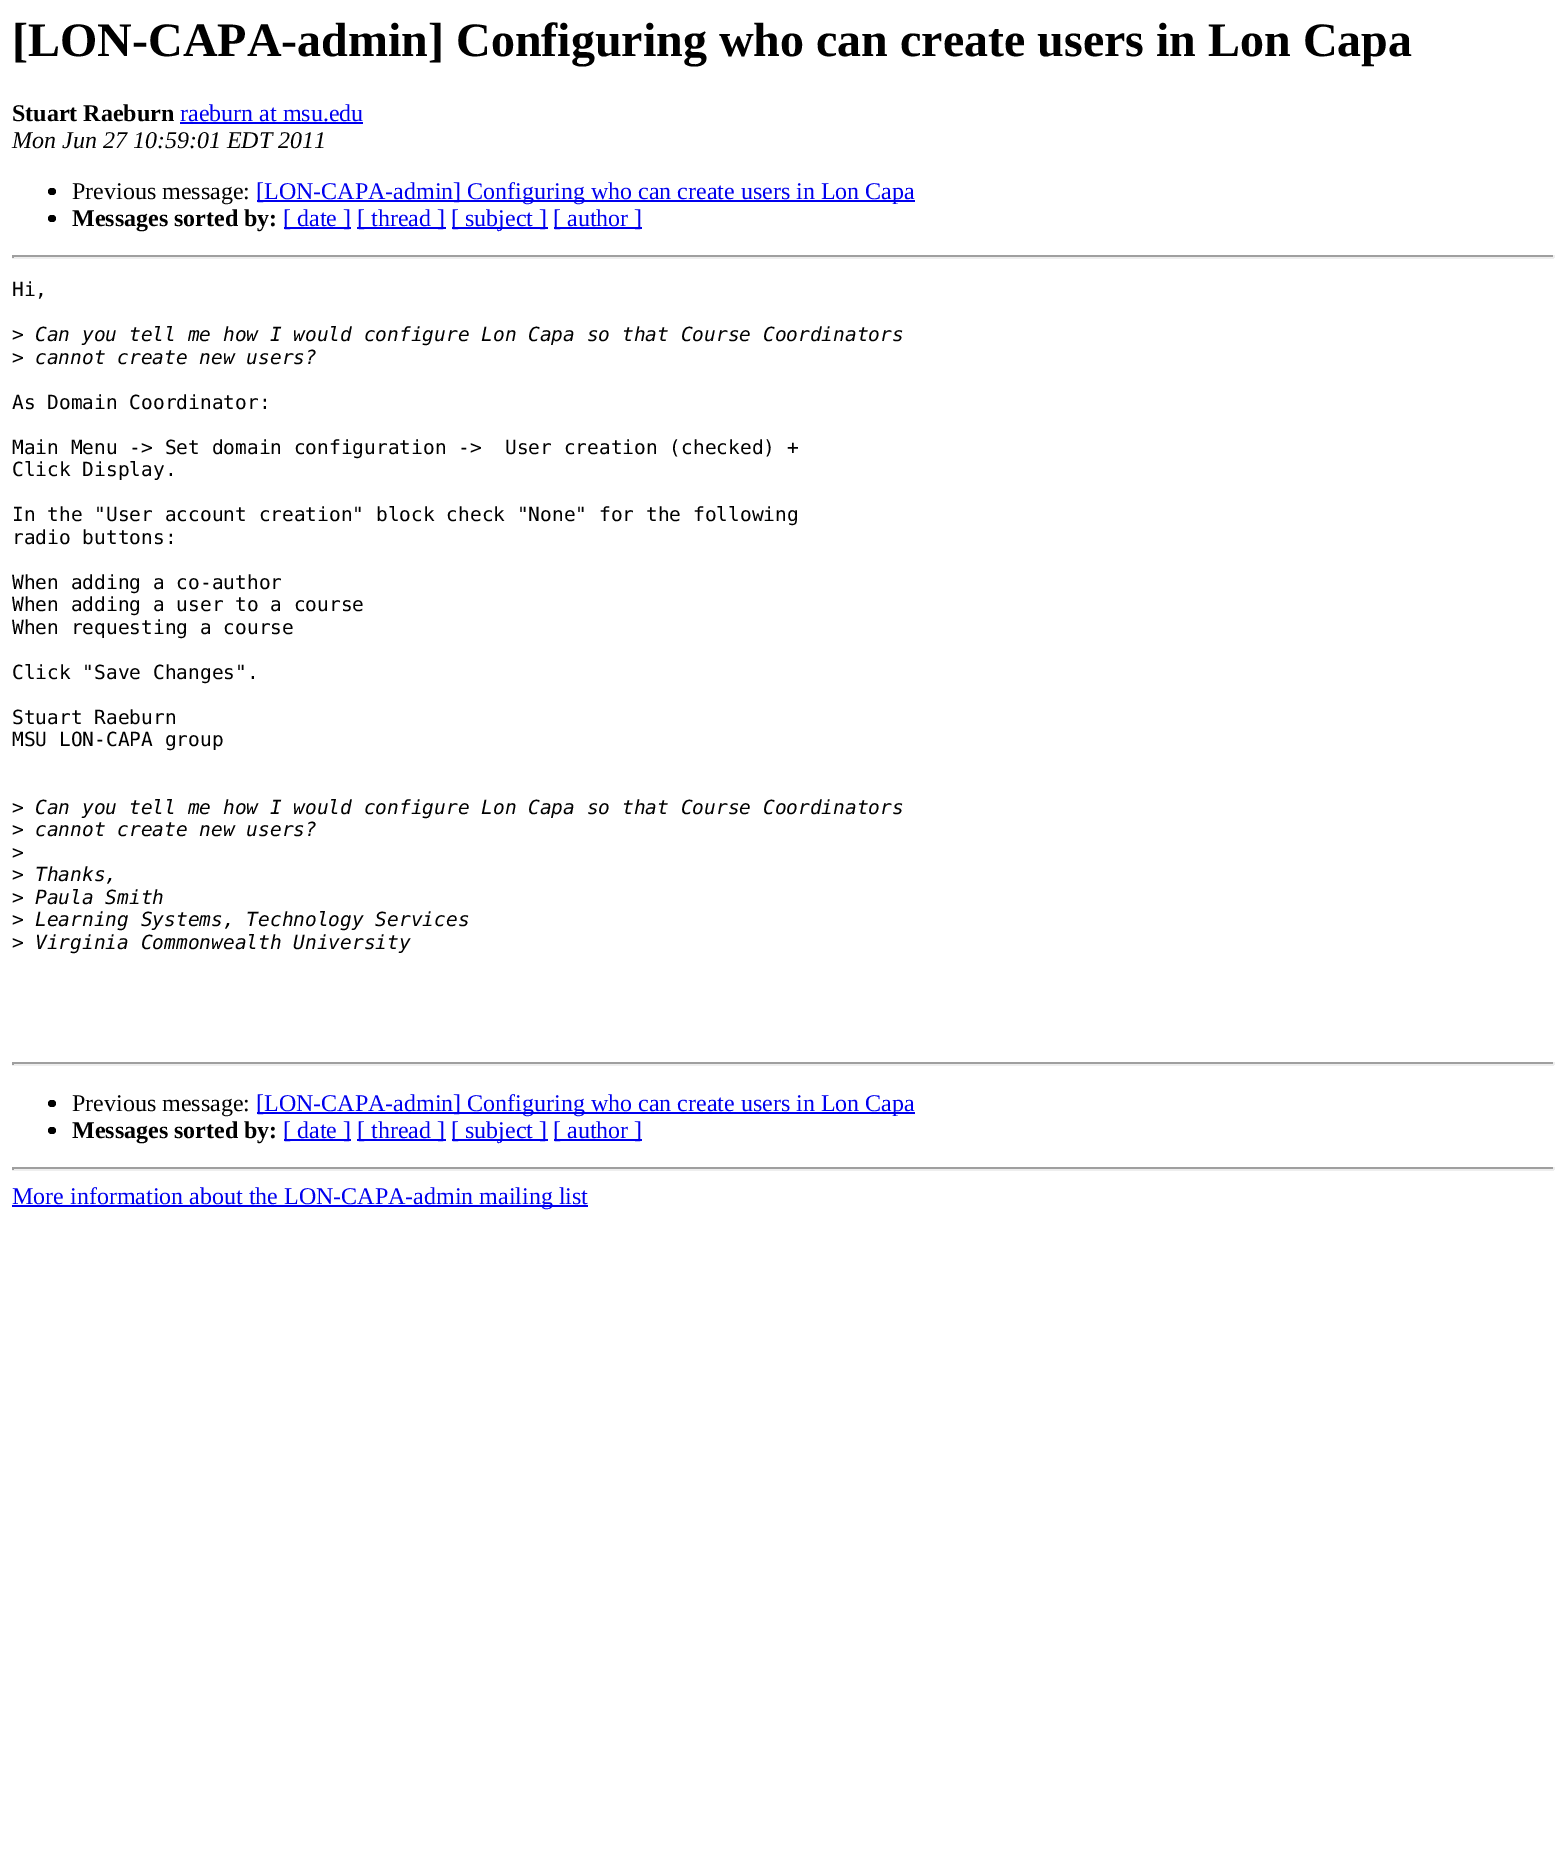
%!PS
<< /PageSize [1566 1865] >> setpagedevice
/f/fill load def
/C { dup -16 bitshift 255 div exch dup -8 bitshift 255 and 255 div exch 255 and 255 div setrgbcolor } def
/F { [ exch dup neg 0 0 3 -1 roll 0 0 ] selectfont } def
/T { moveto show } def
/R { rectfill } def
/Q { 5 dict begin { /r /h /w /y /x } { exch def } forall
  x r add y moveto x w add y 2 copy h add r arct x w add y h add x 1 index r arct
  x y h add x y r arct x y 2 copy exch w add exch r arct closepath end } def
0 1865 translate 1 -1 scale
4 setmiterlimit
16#FFFFFF C
0 0 1566 1865 R
/LiberationSerif-Bold 48 F
16#000000 C
([LON-CAPA-admin] Configuring who can create users in Lon Capa) 12 56 T
/LiberationSerif-Bold 24 F
(Stuart Raeburn) 12 121 T
/LiberationSerif-Regular 24 F
16#0000EE C
(raeburn at msu.edu) 180 121 T
180 122 183 2 R
/LiberationSerif-Italic 24 F
16#000000 C
(Mon Jun 27 10:59:01 EDT 2011) 12 148 T
48 188 8 7 3.5 Q f
/LiberationSerif-Regular 24 F
(Previous message:) 72 199 T
16#0000EE C
257 200 658 2 R
([LON-CAPA-admin] Configuring who can create users in Lon Capa) 256 199 T
16#000000 C
48 215 8 7 3.5 Q f
/LiberationSerif-Bold 24 F
(Messages sorted by:) 72 226 T
16#0000EE C
284 227 67 2 R
/LiberationSerif-Regular 24 F
([ date ]) 283 226 T
357 227 89 2 R
([ thread ]) 357 226 T
452 227 96 2 R
([ subject ]) 451 226 T
554 227 88 2 R
([ author ]) 553 226 T
16#9F9F9F C
12 255 1542 2 R
16#EEEEEE C
1553 255 2 3 R
12 257 1542 2 R
16#9F9F9F C
12 255 2 3 R
/DejaVuSansMono-Regular 19.5 F
16#000000 C
(Hi,) 12 296 T
(>) 12 341 T
/DejaVuSansMono-Italic 19.5 F
(Can you tell me how I would configure Lon Capa so that Course Coordinators) 35 341 T
/DejaVuSansMono-Regular 19.5 F
(>) 12 364 T
/DejaVuSansMono-Italic 19.5 F
(cannot create new users?) 35 364 T
/DejaVuSansMono-Regular 19.5 F
(As Domain Coordinator:) 12 409 T
(Main Menu -> Set domain configuration ->  User creation \(checked\) +) 12 454 T
(Click Display.) 12 476 T
(In the "User account creation" block check "None" for the following) 12 521 T
(radio buttons:) 12 544 T
(When adding a co-author) 12 589 T
(When adding a user to a course) 12 611 T
(When requesting a course) 12 634 T
(Click "Save Changes".) 12 679 T
(Stuart Raeburn) 12 724 T
(MSU LON-CAPA group) 12 746 T
(>) 12 814 T
/DejaVuSansMono-Italic 19.5 F
(Can you tell me how I would configure Lon Capa so that Course Coordinators) 35 814 T
/DejaVuSansMono-Regular 19.5 F
(>) 12 836 T
/DejaVuSansMono-Italic 19.5 F
(cannot create new users?) 35 836 T
/DejaVuSansMono-Regular 19.5 F
(>) 12 859 T
(>) 12 881 T
/DejaVuSansMono-Italic 19.5 F
(Thanks,) 35 881 T
/DejaVuSansMono-Regular 19.5 F
(>) 12 904 T
/DejaVuSansMono-Italic 19.5 F
(Paula Smith) 35 904 T
/DejaVuSansMono-Regular 19.5 F
(>) 12 926 T
/DejaVuSansMono-Italic 19.5 F
(Learning Systems, Technology Services) 35 926 T
/DejaVuSansMono-Regular 19.5 F
(>) 12 949 T
/DejaVuSansMono-Italic 19.5 F
(Virginia Commonwealth University) 35 949 T
16#9F9F9F C
12 1062 1542 2 R
16#EEEEEE C
1553 1062 2 3 R
12 1064 1542 2 R
16#9F9F9F C
12 1062 2 3 R
16#000000 C
48 1100 8 7 3.5 Q f
/LiberationSerif-Regular 24 F
(Previous message:) 72 1111 T
16#0000EE C
257 1112 658 2 R
([LON-CAPA-admin] Configuring who can create users in Lon Capa) 256 1111 T
16#000000 C
48 1127 8 7 3.5 Q f
/LiberationSerif-Bold 24 F
(Messages sorted by:) 72 1138 T
16#0000EE C
284 1139 67 2 R
/LiberationSerif-Regular 24 F
([ date ]) 283 1138 T
357 1139 89 2 R
([ thread ]) 357 1138 T
452 1139 96 2 R
([ subject ]) 451 1138 T
554 1139 88 2 R
([ author ]) 553 1138 T
16#9F9F9F C
12 1167 1542 2 R
16#EEEEEE C
1553 1167 2 3 R
12 1169 1542 2 R
16#9F9F9F C
12 1167 2 3 R
16#0000EE C
12 1205 576 2 R
(More information about the LON-CAPA-admin mailing list) 12 1204 T
showpage
